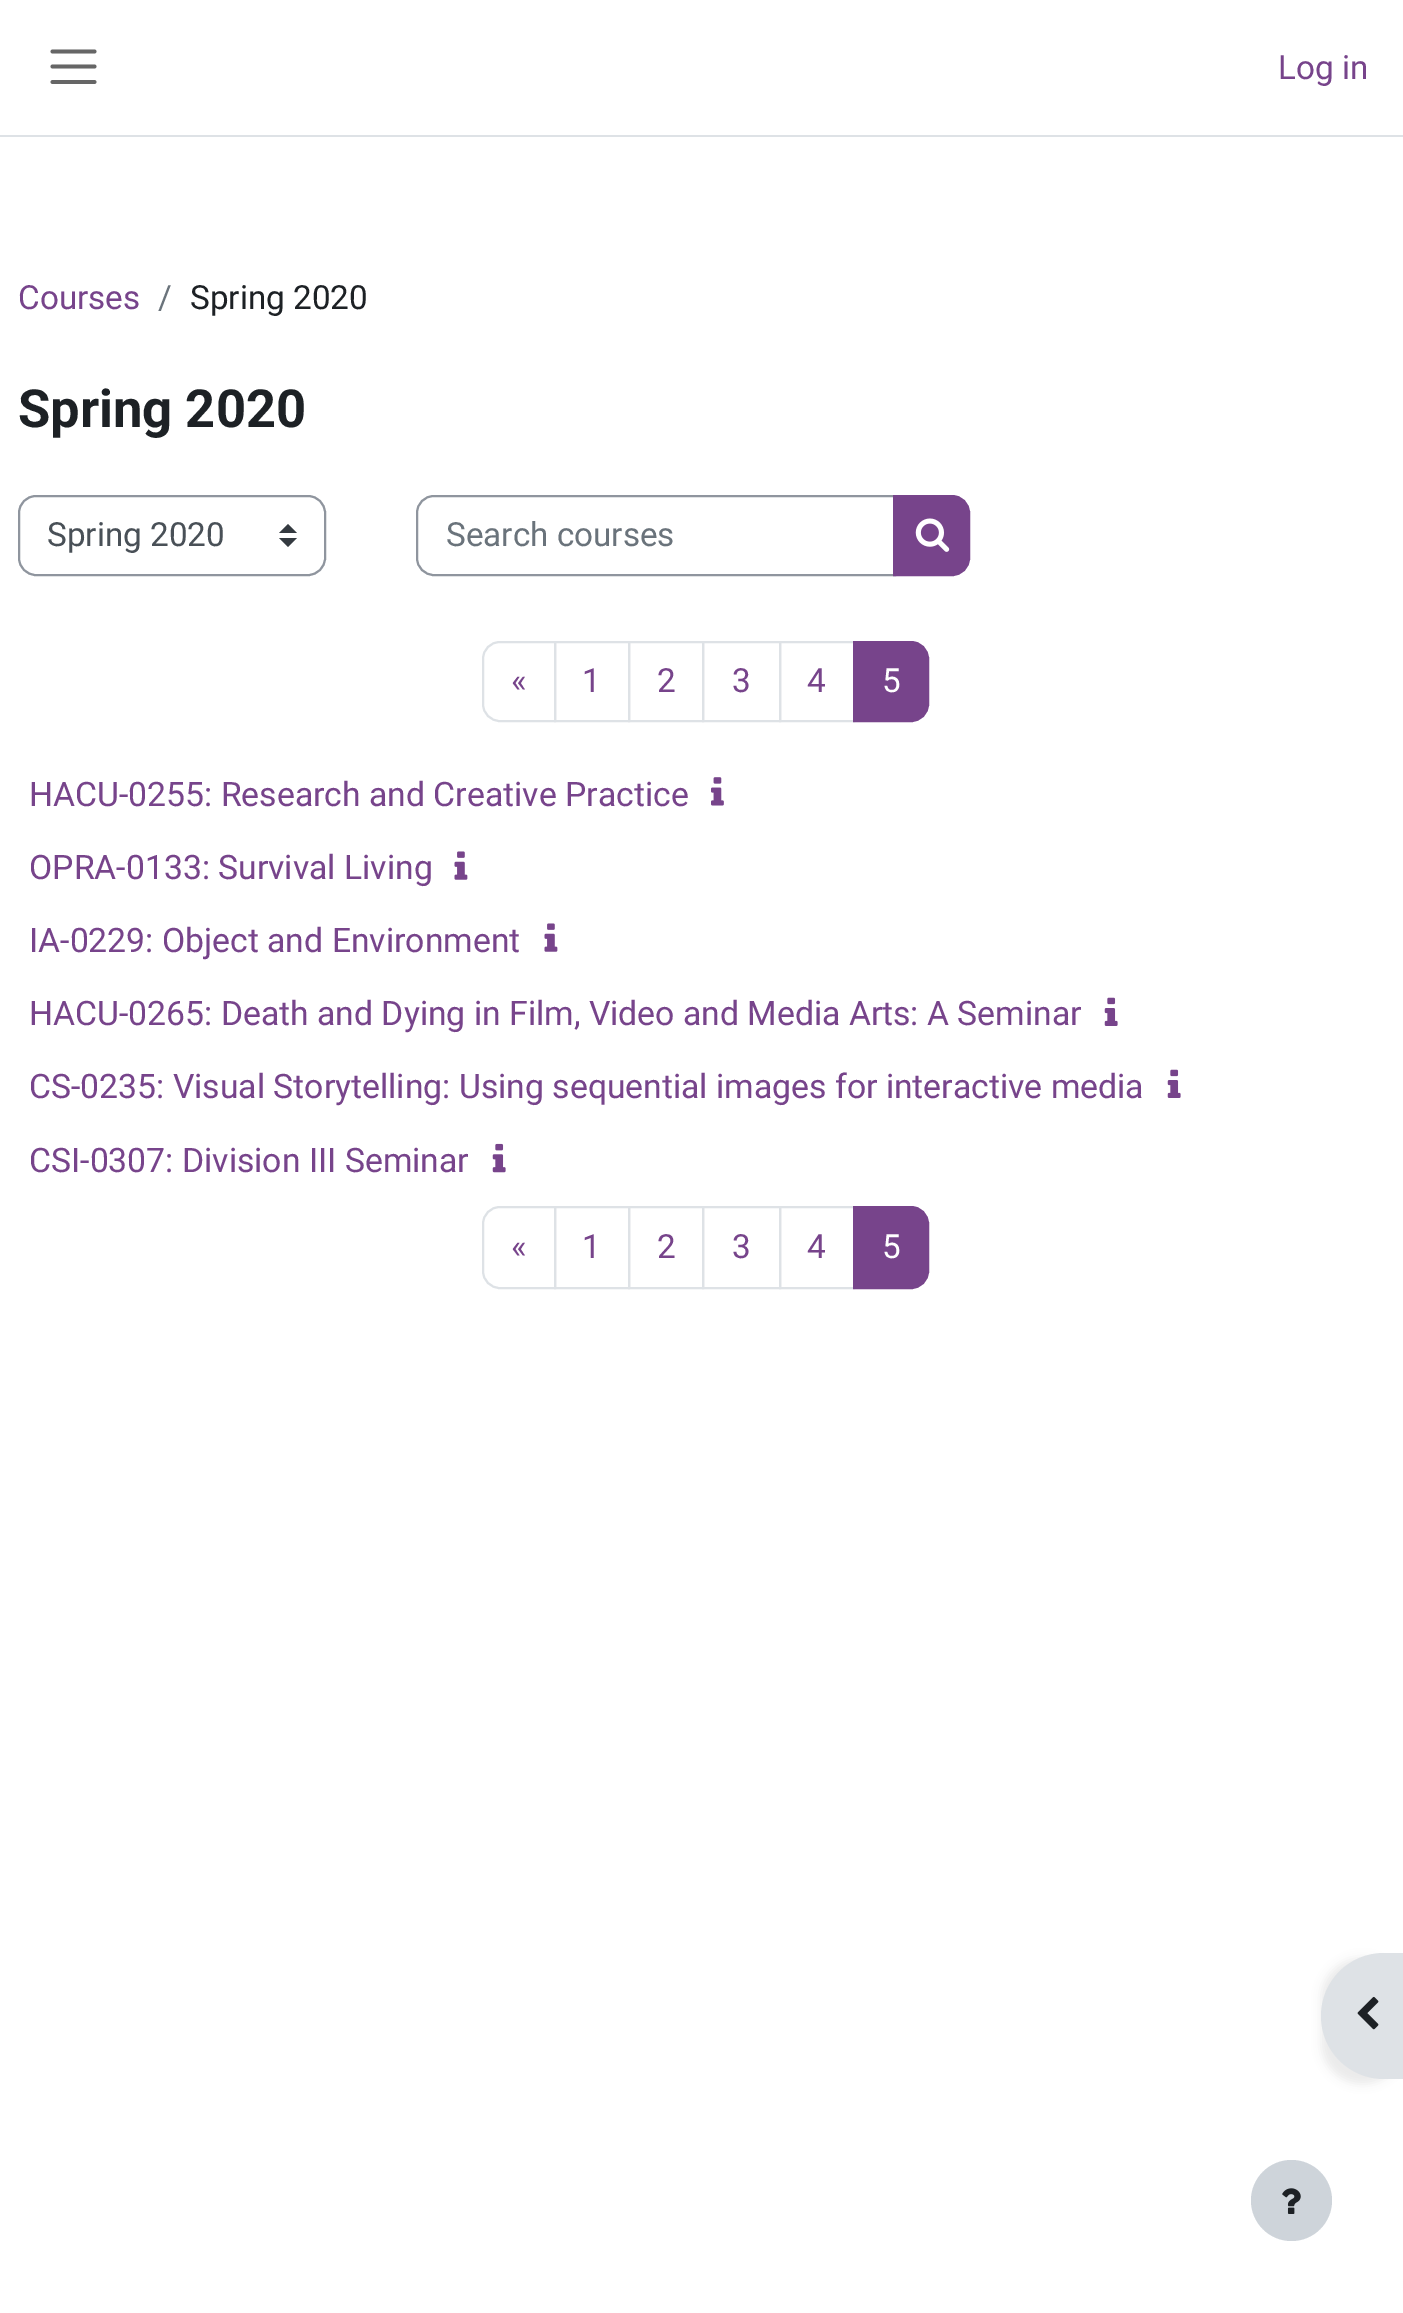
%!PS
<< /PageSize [1403 2313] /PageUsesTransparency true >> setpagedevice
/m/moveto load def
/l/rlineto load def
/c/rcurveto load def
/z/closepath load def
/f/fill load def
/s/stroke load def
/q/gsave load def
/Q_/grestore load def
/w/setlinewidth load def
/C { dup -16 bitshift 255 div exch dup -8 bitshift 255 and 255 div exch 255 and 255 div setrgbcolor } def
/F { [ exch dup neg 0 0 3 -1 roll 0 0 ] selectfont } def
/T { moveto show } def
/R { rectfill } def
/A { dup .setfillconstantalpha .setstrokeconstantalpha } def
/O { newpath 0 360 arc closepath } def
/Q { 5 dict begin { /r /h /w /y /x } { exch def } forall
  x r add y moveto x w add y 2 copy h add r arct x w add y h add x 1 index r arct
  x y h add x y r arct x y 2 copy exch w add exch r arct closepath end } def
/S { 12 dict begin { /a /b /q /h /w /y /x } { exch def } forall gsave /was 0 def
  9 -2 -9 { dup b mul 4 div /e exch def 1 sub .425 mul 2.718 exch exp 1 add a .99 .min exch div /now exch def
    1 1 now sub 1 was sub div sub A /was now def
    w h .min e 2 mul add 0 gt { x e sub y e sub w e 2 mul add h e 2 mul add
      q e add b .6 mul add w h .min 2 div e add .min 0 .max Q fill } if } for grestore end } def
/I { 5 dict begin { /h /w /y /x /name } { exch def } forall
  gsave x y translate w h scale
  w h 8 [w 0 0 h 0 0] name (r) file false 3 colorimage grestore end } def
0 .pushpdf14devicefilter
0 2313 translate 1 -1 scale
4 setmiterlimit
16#FFFFFF C
0 0 1403 2313 R
16#DEE2E6 C
0 135 1403 2 R
16#666666 C
3.8 w
1 setlinecap
52.5 51.5 m 42 0 l 52.5 66.5 m 42 0 l 52.5 82 m 42 0 l s
/Roboto-Regular 33.25 F
16#77448B C
(Log in) 1278 79 T
(Courses) 18 309 T
16#6A737B C
(/) 158 309 T
16#1D2125 C
(Spring 2020) 190 309 T
/Roboto-Bold 52.5 F
(Spring 2020) 18 427 T
16#343A40 C
288 524 m -9 9 l 18 0 l z 288 547 m -9 -9 l 18 0 l z f
16#8F959E C
2 w
0 setlinecap
19 496 306 79 17 Q s
/Roboto-Regular 33.25 F
16#495057 C
(Spring 2020) 47 546 T
16#8F959E C
434 496 m 461 0 l 0 79 l -461 0 l -9.5 0 -17 -7.5 -17 -17 c 0 -45 l 0 -9.5 7.5 -17 17 -17 c z s
16#6A737B C
(Search courses) 446 546 T
16#77448B C
894 496 m 58 0 l 9.5 0 17 7.5 17 17 c 0 45 l 0 9.5 -7.5 17 -17 17 c -58 0 l z q f Q_
s
(1.rgb) 915 518 35 34 I
16#DEE2E6 C
500 642 m 55 0 l 0 79 l -55 0 l -9.5 0 -17 -7.5 -17 -17 c 0 -45 l 0 -9.5 7.5 -17 17 -17 c z s
16#77448B C
(«) 511 692 T
16#DEE2E6 C
555 642 74 79 rectstroke
16#77448B C
(1) 582 692 T
16#DEE2E6 C
629 642 74 79 rectstroke
16#77448B C
(2) 657 692 T
16#DEE2E6 C
703 642 77 79 rectstroke
16#77448B C
(3) 732 692 T
16#DEE2E6 C
780 642 74 79 rectstroke
16#77448B C
(4) 807 692 T
854 642 m 57 0 l 9.5 0 17 7.5 17 17 c 0 45 l 0 9.5 -7.5 17 -17 17 c -57 0 l z q f Q_
s
16#FFFFFF C
(5) 882 692 T
/Roboto-Regular 33.75 F
16#77448B C
(HACU-0255: Research and Creative Practice) 29 806 T
(2.rgb) 711 777 13 29 I
(OPRA-0133: Survival Living) 29 879 T
(3.rgb) 454 851 14 29 I
(IA-0229: Object and Environment) 29 952 T
(3.rgb) 544 923 14 29 I
(HACU-0265: Death and Dying in Film, Video and Media Arts: A Seminar) 29 1025 T
(4.rgb) 1104 997 14 29 I
(CS-0235: Visual Storytelling: Using sequential images for interactive media) 29 1098 T
(4.rgb) 1167 1069 14 29 I
(CSI-0307: Division III Seminar) 29 1172 T
(5.rgb) 492 1143 14 30 I
16#DEE2E6 C
500 1207 m 55 0 l 0 81 l -55 0 l -9.5 0 -17 -7.5 -17 -17 c 0 -47 l 0 -9.5 7.5 -17 17 -17 c z s
/Roboto-Regular 33.25 F
16#77448B C
(«) 511 1258 T
16#DEE2E6 C
555 1207 74 81 rectstroke
16#77448B C
(1) 582 1258 T
16#DEE2E6 C
629 1207 74 81 rectstroke
16#77448B C
(2) 657 1258 T
16#DEE2E6 C
703 1207 77 81 rectstroke
16#77448B C
(3) 732 1258 T
16#DEE2E6 C
780 1207 74 81 rectstroke
16#77448B C
(4) 807 1258 T
854 1207 m 57 0 l 9.5 0 17 7.5 17 17 c 0 47 l 0 9.5 -7.5 17 -17 17 c -57 0 l z q f Q_
s
16#FFFFFF C
(5) 882 1258 T
16#000000 C
1321 1958 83 126 63 4.5 .07 S
16#DEE2E6 C
1384 1953 m 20 0 l 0 126 l -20 0 l -35 0 -63 -28 -63 -63 c 0 -35 28 -63 63 -63 c z f
(6.rgb) 1357 1996 22 34 I
16#CED4DA C
1291.5 2200.5 40.5 O f
(7.rgb) 1282 2188 19 26 I
.poppdf14devicefilter showpage
